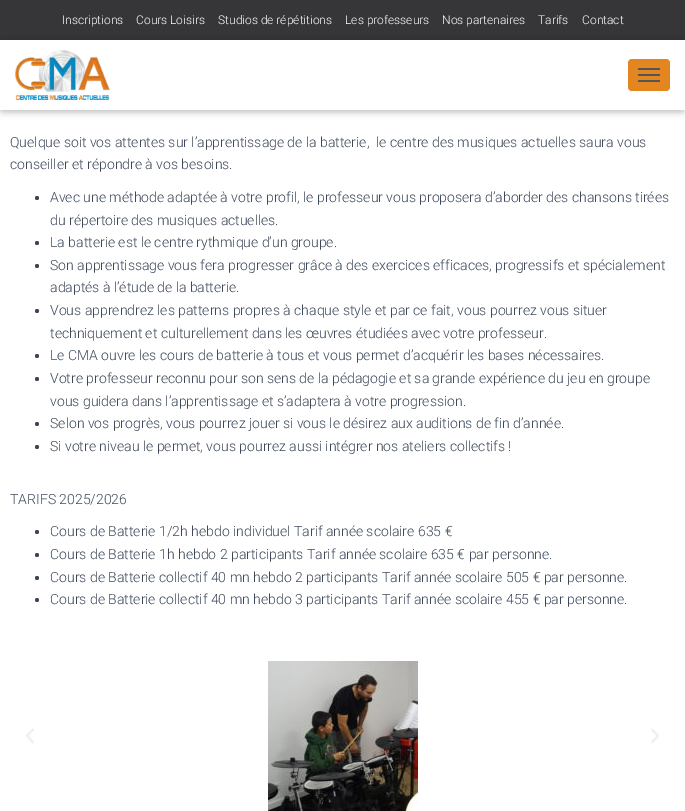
%!PS
<< /PageSize [685 811] /PageUsesTransparency true >> setpagedevice
/f/fill load def
/C { dup -16 bitshift 255 div exch dup -8 bitshift 255 and 255 div exch 255 and 255 div setrgbcolor } def
/F { [ exch dup neg 0 0 3 -1 roll 0 0 ] selectfont } def
/T { moveto show } def
/R { rectfill } def
/A { dup .setfillconstantalpha .setstrokeconstantalpha } def
/O { newpath 0 360 arc closepath } def
/Q { 5 dict begin { /r /h /w /y /x } { exch def } forall
  x r add y moveto x w add y 2 copy h add r arct x w add y h add x 1 index r arct
  x y h add x y r arct x y 2 copy exch w add exch r arct closepath end } def
/S { 12 dict begin { /a /b /q /h /w /y /x } { exch def } forall gsave /was 0 def
  9 -2 -9 { dup b mul 4 div /e exch def 1 sub .425 mul 2.718 exch exp 1 add a .99 .min exch div /now exch def
    1 1 now sub 1 was sub div sub A /was now def
    w h .min e 2 mul add 0 gt { x e sub y e sub w e 2 mul add h e 2 mul add
      q e add b .6 mul add w h .min 2 div e add .min 0 .max Q fill } if } for grestore end } def
/I { 5 dict begin { /h /w /y /x /name } { exch def } forall
  gsave x y translate w h scale
  w h 8 [w 0 0 h 0 0] name (r) file false 3 colorimage grestore end } def
0 .pushpdf14devicefilter
0 811 translate 1 -1 scale
4 setmiterlimit
16#363537 C
0 0 685 811 R
/Roboto-Light 12 F
16#FFFFFF C
(Inscriptions) 62 24 T
(Cours Loisirs) 136 24 T
(Studios de répétitions) 218 24 T
(Les professeurs) 345 24 T
(Nos partenaires) 442 24 T
(Tarifs) 538 24 T
(Contact) 582 24 T
0 110 685 701 R
16#000000 C
2 46 681 66 0 2.5 .1 S
0 41 685 70 0 5 .12 S
6 47 673 58 0 5 .42 S
16#FFFFFF C
0 40 685 70 R
(1.rgb) 15 50 95 50 I
16#E48620 C
628 59 42 32 4 Q f
16#555555 C
638 68 22 2 1 Q f
638 74 22 2 1 Q f
638 80 22 2 1 Q f
/Roboto-Light 14 F
16#3C4858 C
(Quelque soit vos attentes sur l’apprentissage de la batterie,  le centre des musiques actuelles saura vous) 10 147 T
(conseiller et répondre à vos besoins.) 10 169 T
37 198 2 O f
(Avec une méthode adaptée à votre profil, le professeur vous proposera d’aborder des chansons tirées) 50 202 T
(du répertoire des musiques actuelles.) 50 225 T
37 243 2 O f
(La batterie est le centre rythmique d’un groupe.) 50 247 T
37 266 2 O f
(Son apprentissage vous fera progresser grâce à des exercices efficaces, progressifs et spécialement) 50 270 T
(adaptés à l’étude de la batterie.) 50 292 T
37 311 2 O f
(Vous apprendrez les patterns propres à chaque style et par ce fait, vous pourrez vous situer) 50 315 T
(techniquement et culturellement dans les œuvres étudiées avec votre professeur.) 50 338 T
37 356 2 O f
(Le CMA ouvre les cours de batterie à tous et vous permet d’acquérir les bases nécessaires.) 50 360 T
37 379 2 O f
(Votre professeur reconnu pour son sens de la pédagogie et sa grande expérience du jeu en groupe) 50 383 T
(vous guidera dans l’apprentissage et s’adaptera à votre progression.) 50 406 T
37 424 2 O f
(Selon vos progrès, vous pourrez jouer si vous le désirez aux auditions de fin d’année.) 50 428 T
37 447 2 O f
(Si votre niveau le permet, vous pourrez aussi intégrer nos ateliers collectifs !) 50 451 T
(TARIFS 2025/2026) 10 504 T
37 532 2 O f
(Cours de Batterie 1/2h hebdo individuel Tarif année scolaire 635 €) 50 536 T
37 555 2 O f
(Cours de Batterie 1h hebdo 2 participants Tarif année scolaire 635 € par personne.) 50 559 T
37 578 2 O f
(Cours de Batterie collectif 40 mn hebdo 2 participants Tarif année scolaire 505 € par personne.) 50 582 T
37 600 2 O f
(Cours de Batterie collectif 40 mn hebdo 3 participants Tarif année scolaire 455 € par personne.) 50 604 T
(2.rgb) 26 728 8 16 I
(3.rgb) 268 661 150 150 I
(4.rgb) 651 728 8 16 I
.poppdf14devicefilter showpage
